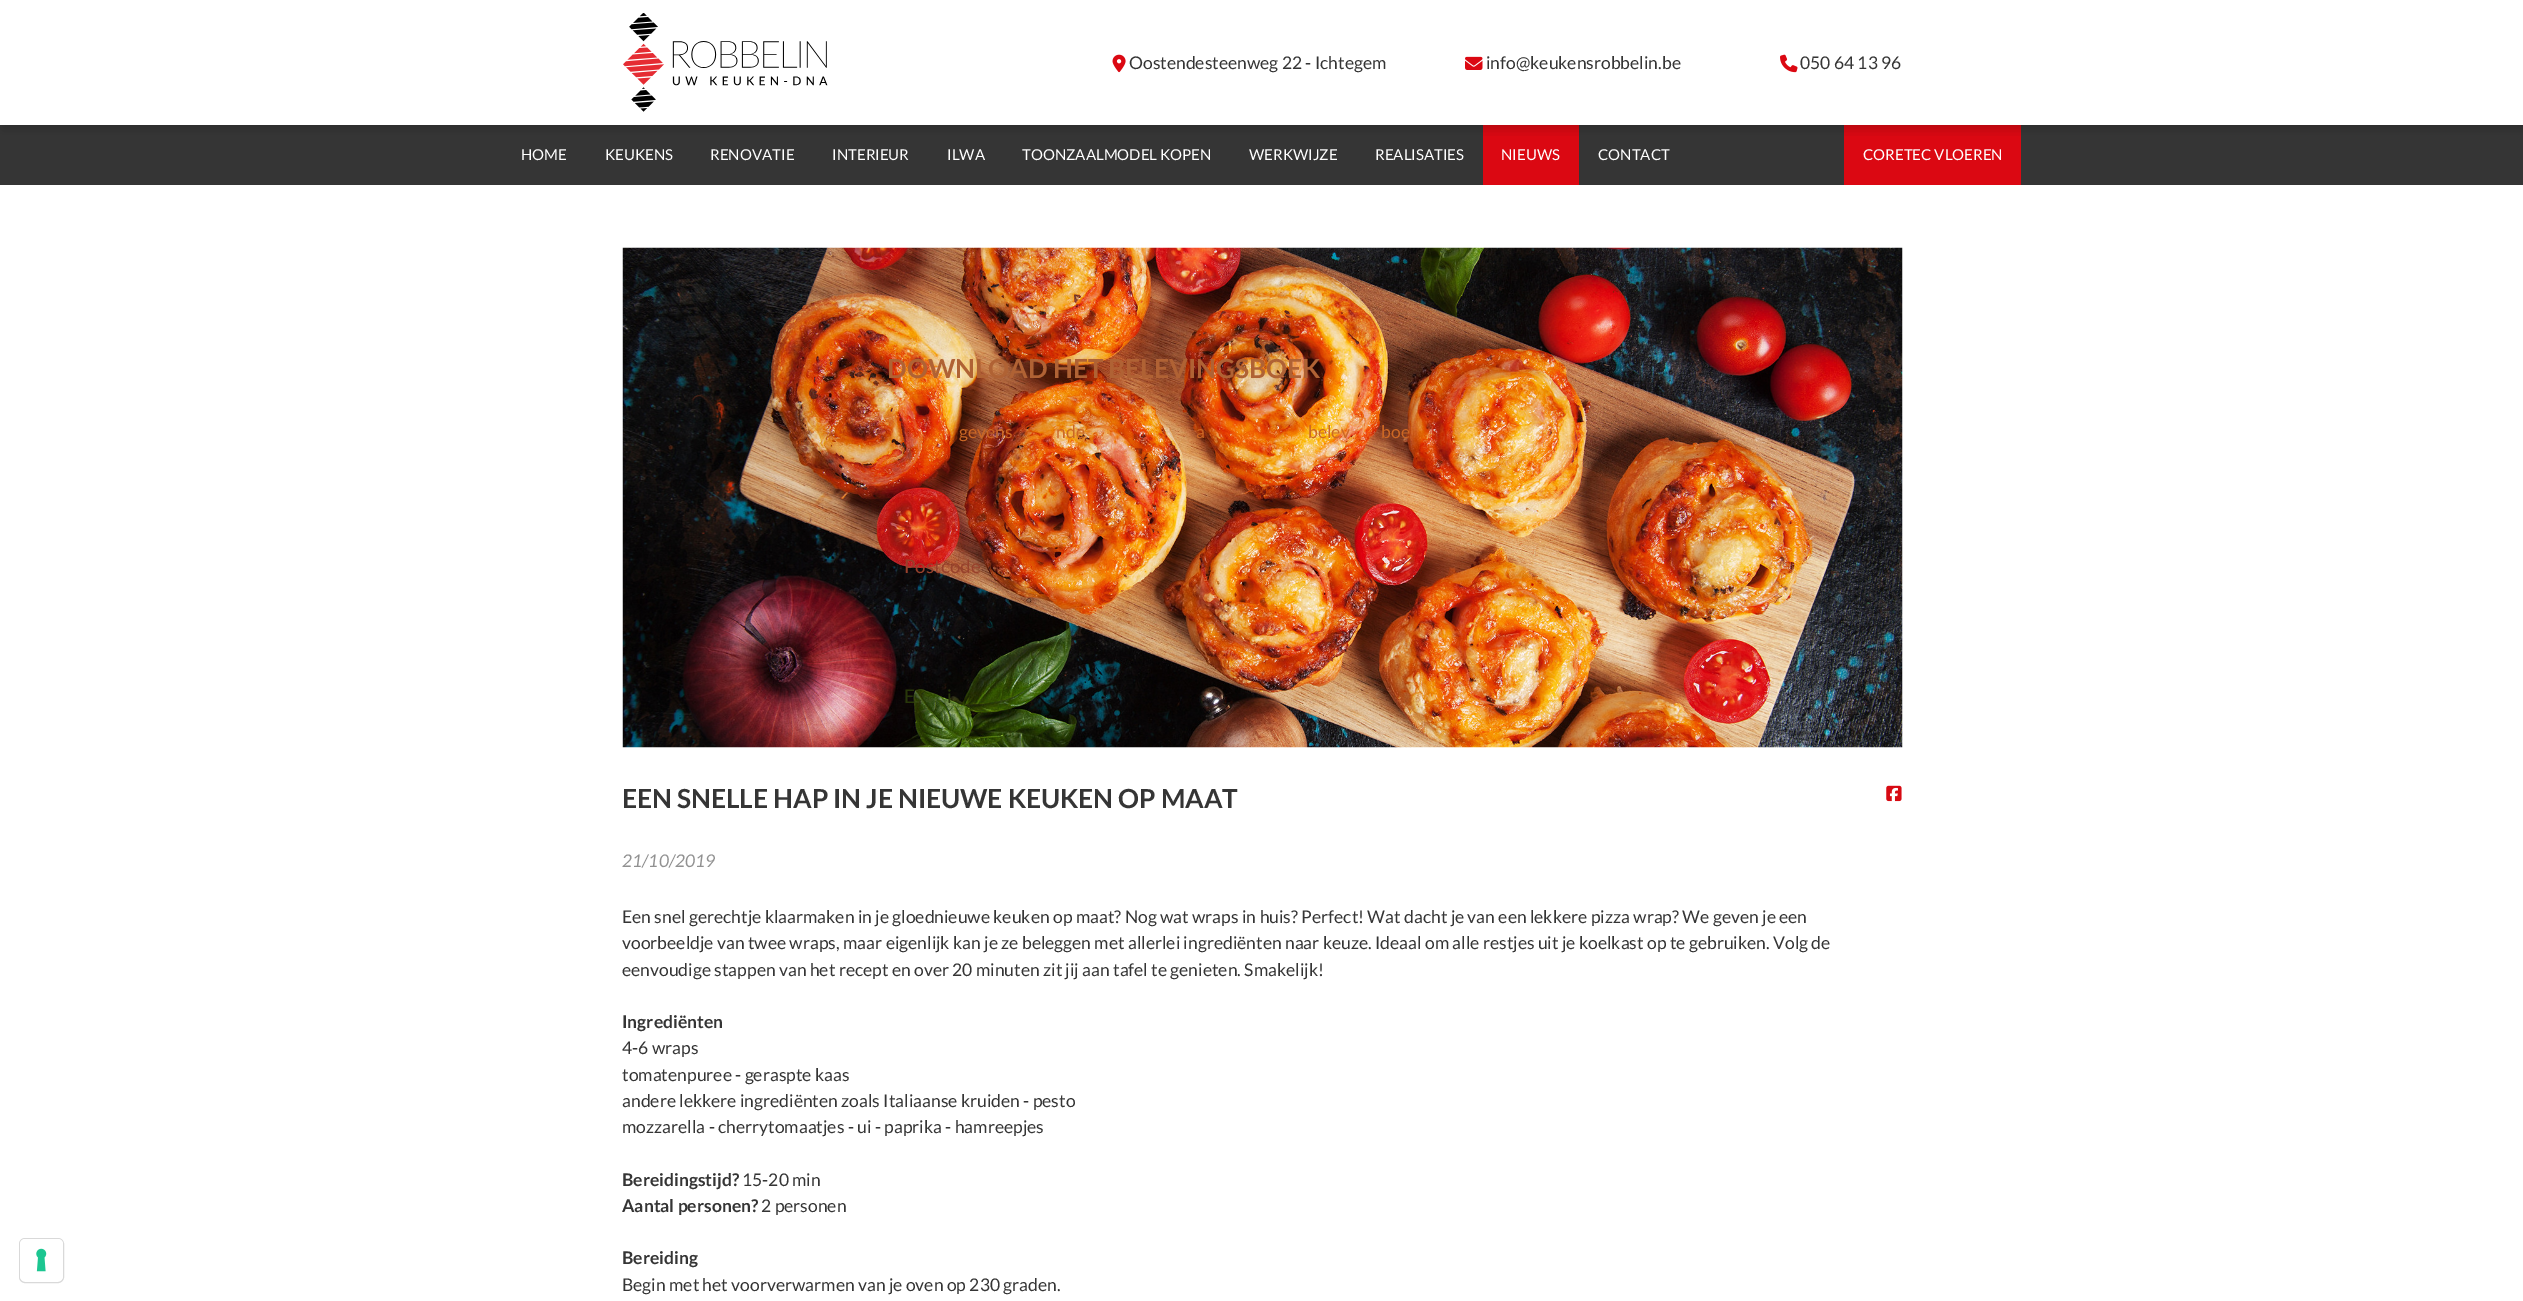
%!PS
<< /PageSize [2523 1301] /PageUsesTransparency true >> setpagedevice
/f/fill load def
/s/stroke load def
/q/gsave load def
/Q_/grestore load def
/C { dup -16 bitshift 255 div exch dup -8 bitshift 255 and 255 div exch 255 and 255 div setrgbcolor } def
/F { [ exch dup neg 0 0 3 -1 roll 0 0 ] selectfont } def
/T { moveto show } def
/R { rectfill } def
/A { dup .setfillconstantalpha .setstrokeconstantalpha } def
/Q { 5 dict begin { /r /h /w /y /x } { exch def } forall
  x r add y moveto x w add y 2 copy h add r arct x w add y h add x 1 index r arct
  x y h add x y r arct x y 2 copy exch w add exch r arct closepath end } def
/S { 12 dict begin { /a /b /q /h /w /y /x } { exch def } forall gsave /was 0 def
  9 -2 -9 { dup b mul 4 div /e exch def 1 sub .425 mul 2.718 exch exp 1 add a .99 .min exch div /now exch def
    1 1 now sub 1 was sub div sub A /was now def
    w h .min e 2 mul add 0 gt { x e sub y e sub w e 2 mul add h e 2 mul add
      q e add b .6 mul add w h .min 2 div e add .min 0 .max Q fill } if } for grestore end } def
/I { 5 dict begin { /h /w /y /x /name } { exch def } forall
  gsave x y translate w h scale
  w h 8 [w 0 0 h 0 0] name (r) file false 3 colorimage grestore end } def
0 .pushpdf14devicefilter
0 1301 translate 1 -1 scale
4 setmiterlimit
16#FFFFFF C
0 0 2523 1301 R
16#D9D9D9 C
19.5 1238.5 44 44 5.5 Q s
16#FFFFFF C
20 1239 43 42 5 Q f
(1.rgb) 36 1248 11 24 I
16#353535 C
0 125 2523 60 R
16#DB0812 C
1483 125 96 60 R
1844 125 177 60 R
q
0 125 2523 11 rectclip
16#000000 C
3 3 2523 125 0 6 .2 S
Q_
(2.rgb) 623 13 205 99 I
(3.rgb) 1112 54 14 19 I
/Lato-Regular 17.5 F
16#353535 C
(Oostendesteenweg 22 - Ichtegem) 1129 69 T
(4.rgb) 1465 56 18 14 I
(info@keukensrobbelin.be) 1486 69 T
(5.rgb) 1780 54 18 19 I
(050 64 13 96) 1800 69 T
/Lato-Regular 15 F
16#FFFFFF C
(HOME) 521 160 T
(KEUKENS) 605 160 T
(RENOVATIE) 710 160 T
(INTERIEUR) 832 160 T
(ILWA) 947 160 T
(TOONZAALMODEL KOPEN) 1022 160 T
(WERKWIJZE) 1249 160 T
(REALISATIES) 1375 160 T
(NIEUWS) 1501 160 T
(CONTACT) 1598 160 T
(CORETEC VLOEREN) 1863 160 T
(6.rgb) 622 247 1281 501 I
/Lato-Bold 26.25 F
16#B06234 C
(DOWNLOAD HET BELEVINGSBOEK) 887 378 T
/Lato-Regular 17.5 F
16#CC6724 C
(gevens) 959 438 T
(nde) 1056 438 T
(a) 1196 438 T
(belev) 1308 438 T
(boe) 1381 438 T
/Lato-Regular 18.75 F
16#98412C C
(Postcode *) 904 573 T
16#28370A C
(E) 904 703 T
(i) 947 703 T
/Lato-Bold 26.25 F
16#353535 C
(EEN SNELLE HAP IN JE NIEUWE KEUKEN OP MAAT) 622 808 T
(7.rgb) 1886 785 16 17 I
/Lato-Italic 17.5 F
16#919191 C
(21/10/2019) 622 867 T
/Lato-Regular 17.5 F
16#353535 C
(Een snel gerechtje klaarmaken in je gloednieuwe keuken op maat? Nog wat wraps in huis? Perfect! Wat dacht je van een lekkere pizza wrap? We geven je een) 622 923 T
(voorbeeldje van twee wraps, maar eigenlijk kan je ze beleggen met allerlei ingrediënten naar keuze. Ideaal om alle restjes uit je koelkast op te gebruiken. Volg de) 622 949 T
(eenvoudige stappen van het recept en over 20 minuten zit jij aan tafel te genieten. Smakelijk!) 622 976 T
/Lato-Bold 17.5 F
(Ingrediënten) 622 1028 T
/Lato-Regular 17.5 F
(4-6 wraps) 622 1054 T
(tomatenpuree - geraspte kaas) 622 1081 T
(andere lekkere ingrediënten zoals Italiaanse kruiden - pesto) 622 1107 T
(mozzarella - cherrytomaatjes - ui - paprika - hamreepjes) 622 1133 T
/Lato-Bold 17.5 F
(Bereidingstijd?) 622 1186 T
/Lato-Regular 17.5 F
(15-20 min) 742 1186 T
/Lato-Bold 17.5 F
(Aantal personen?) 622 1212 T
/Lato-Regular 17.5 F
(2 personen) 761 1212 T
/Lato-Bold 17.5 F
(Bereiding) 622 1264 T
/Lato-Regular 17.5 F
(Begin met het voorverwarmen van je oven op 230 graden.) 622 1291 T
.poppdf14devicefilter showpage
